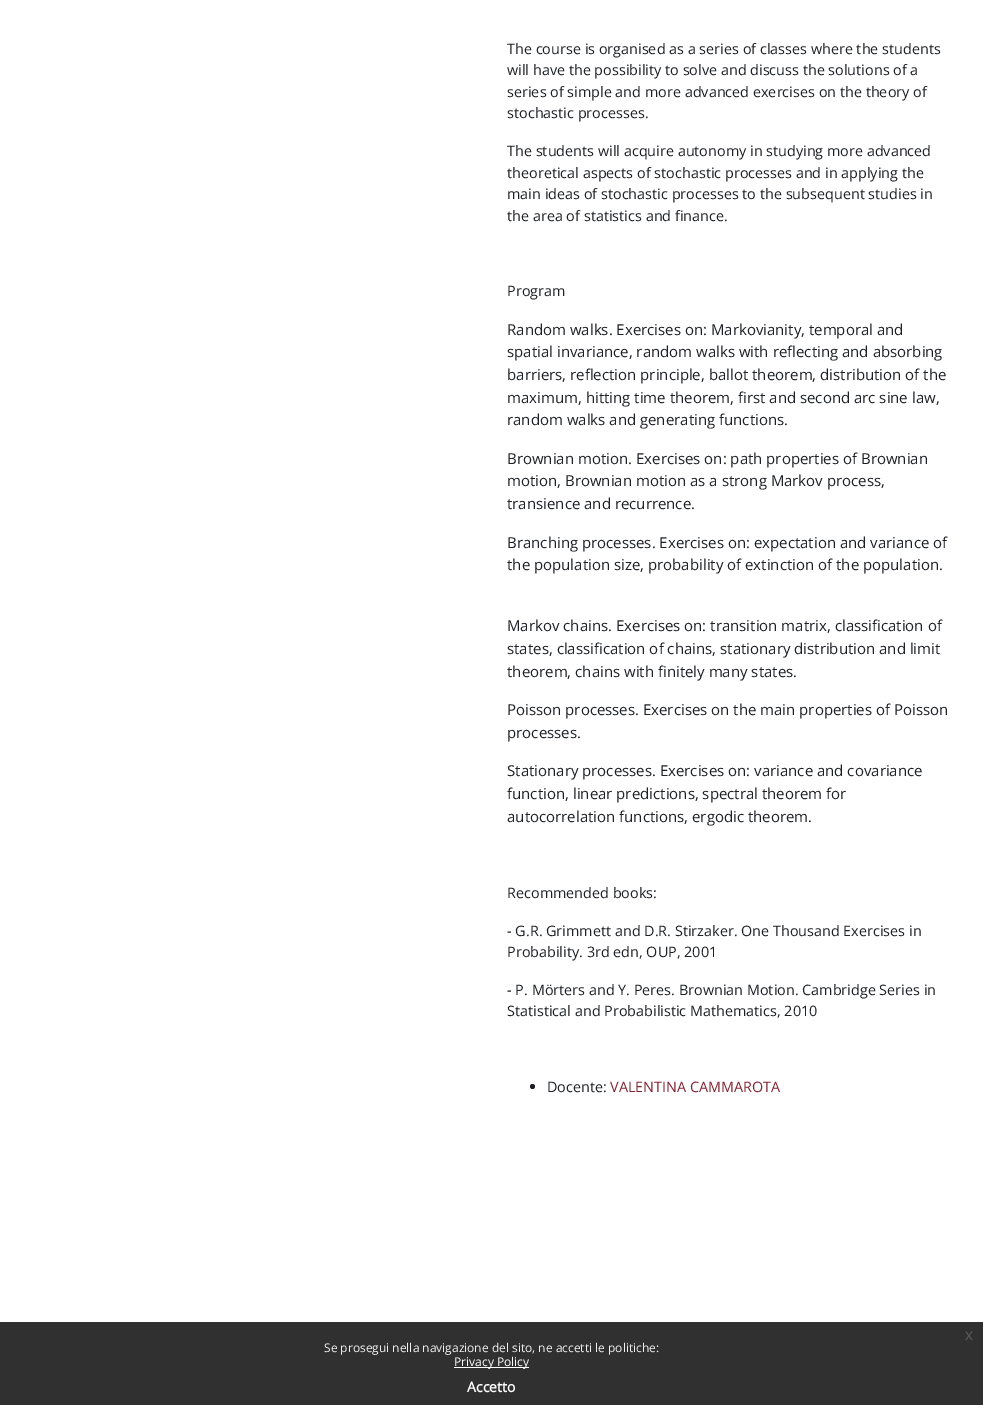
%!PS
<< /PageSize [983 1405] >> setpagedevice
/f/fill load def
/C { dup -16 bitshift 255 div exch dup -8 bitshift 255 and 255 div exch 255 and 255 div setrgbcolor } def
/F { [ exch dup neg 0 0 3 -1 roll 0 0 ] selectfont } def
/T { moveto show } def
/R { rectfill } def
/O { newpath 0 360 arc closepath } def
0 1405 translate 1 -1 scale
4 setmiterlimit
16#FFFFFF C
0 0 983 1405 R
/OpenSans-Regular 14.4 F
16#1D2125 C
(The course is organised as a series of classes where the students) 507 54 T
(will have the possibility to solve and discuss the solutions of a) 507 75 T
(series of simple and more advanced exercises on the theory of) 507 97 T
(stochastic processes.) 507 118 T
(The students will acquire autonomy in studying more advanced) 507 156 T
(theoretical aspects of stochastic processes and in applying the) 507 178 T
(main ideas of stochastic processes to the subsequent studies in) 507 199 T
(the area of statistics and finance.) 507 221 T
(Program) 507 296 T
/OpenSans-Regular 15 F
(Random walks. Exercises on: Markovianity, temporal and) 507 335 T
(spatial invariance, random walks with reflecting and absorbing) 507 357 T
(barriers, reflection principle, ballot theorem, distribution of the) 507 380 T
(maximum, hitting time theorem, first and second arc sine law,) 507 403 T
(random walks and generating functions.) 507 425 T
(Brownian motion. Exercises on: path properties of Brownian) 507 464 T
(motion, Brownian motion as a strong Markov process,) 507 486 T
(transience and recurrence.) 507 509 T
(Branching processes. Exercises on: expectation and variance of) 507 548 T
(the population size, probability of extinction of the population.) 507 570 T
(Markov chains. Exercises on: transition matrix, classification of) 507 631 T
(states, classification of chains, stationary distribution and limit) 507 654 T
(theorem, chains with finitely many states.) 507 677 T
(Poisson processes. Exercises on the main properties of Poisson) 507 715 T
(processes.) 507 738 T
(Stationary processes. Exercises on: variance and covariance) 507 776 T
(function, linear predictions, spectral theorem for) 507 799 T
(autocorrelation functions, ergodic theorem.) 507 822 T
/OpenSans-Regular 14.4 F
(Recommended books:) 507 898 T
(- G.R. Grimmett and D.R. Stirzaker. One Thousand Exercises in) 507 936 T
(Probability. 3rd edn, OUP, 2001) 507 957 T
(- P. Mörters and Y. Peres. Brownian Motion. Cambridge Series in) 507 995 T
(Statistical and Probabilistic Mathematics, 2010) 507 1016 T
532.5 1086.5 2.5 O f
(Docente:) 547 1092 T
16#822433 C
(VALENTINA CAMMAROTA) 610 1092 T
16#303030 C
0 1322 983 83 R
/LiberationSans-Regular 16 F
16#595959 C
(x) 965 1340 T
/OpenSans-Regular 12 F
16#EFEFEF C
(Se prosegui nella navigazione del sito, ne accetti le politiche:) 324 1352 T
16#FFFFFF C
454 1367 75 1 R
(Privacy Policy) 454 1366 T
/OpenSans-Bold 14 F
(Accetto) 467 1392 T
showpage
